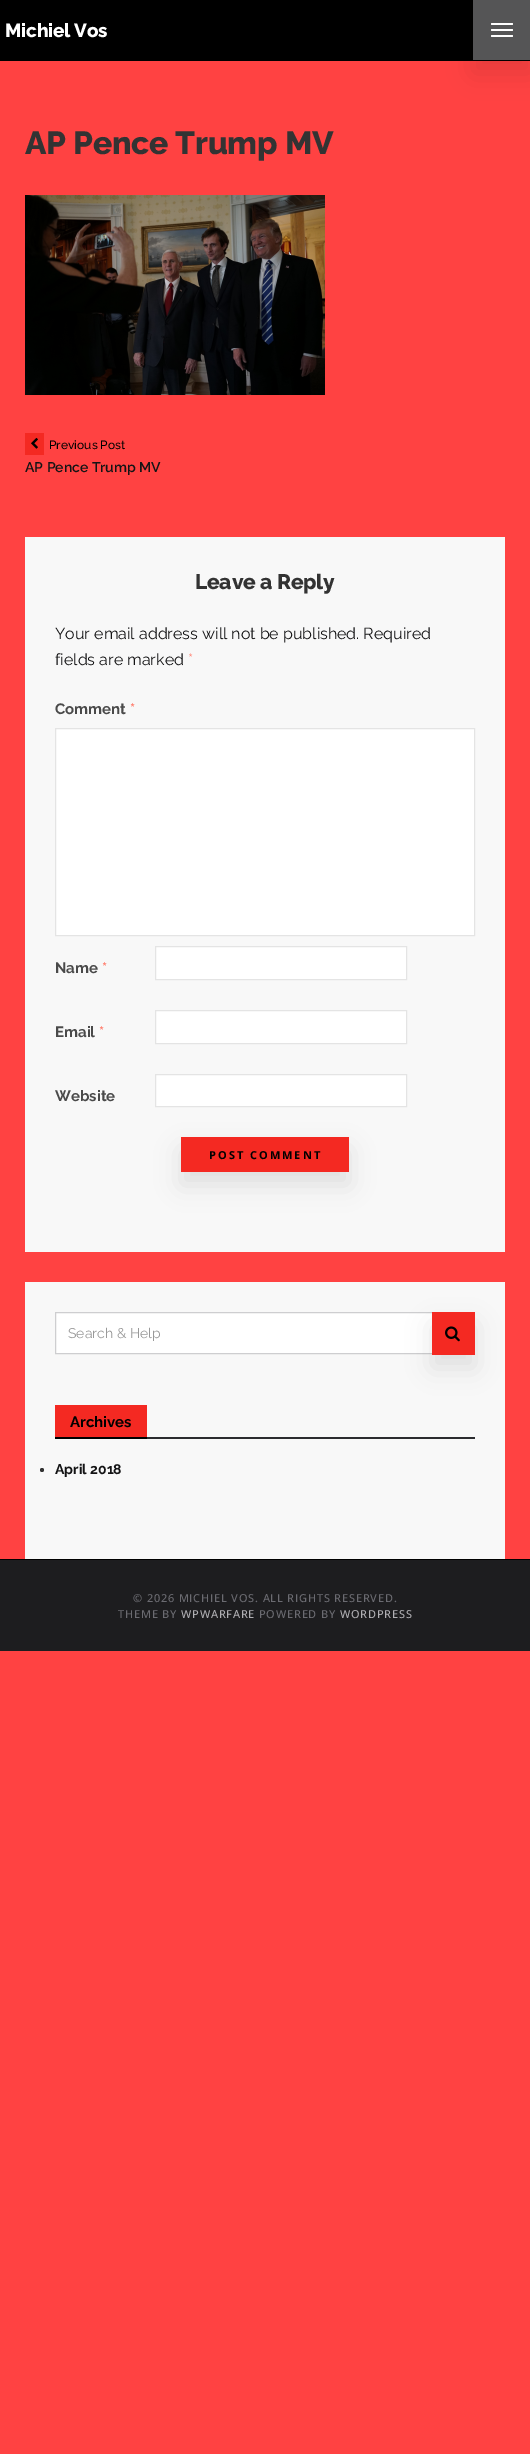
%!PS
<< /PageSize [530 2454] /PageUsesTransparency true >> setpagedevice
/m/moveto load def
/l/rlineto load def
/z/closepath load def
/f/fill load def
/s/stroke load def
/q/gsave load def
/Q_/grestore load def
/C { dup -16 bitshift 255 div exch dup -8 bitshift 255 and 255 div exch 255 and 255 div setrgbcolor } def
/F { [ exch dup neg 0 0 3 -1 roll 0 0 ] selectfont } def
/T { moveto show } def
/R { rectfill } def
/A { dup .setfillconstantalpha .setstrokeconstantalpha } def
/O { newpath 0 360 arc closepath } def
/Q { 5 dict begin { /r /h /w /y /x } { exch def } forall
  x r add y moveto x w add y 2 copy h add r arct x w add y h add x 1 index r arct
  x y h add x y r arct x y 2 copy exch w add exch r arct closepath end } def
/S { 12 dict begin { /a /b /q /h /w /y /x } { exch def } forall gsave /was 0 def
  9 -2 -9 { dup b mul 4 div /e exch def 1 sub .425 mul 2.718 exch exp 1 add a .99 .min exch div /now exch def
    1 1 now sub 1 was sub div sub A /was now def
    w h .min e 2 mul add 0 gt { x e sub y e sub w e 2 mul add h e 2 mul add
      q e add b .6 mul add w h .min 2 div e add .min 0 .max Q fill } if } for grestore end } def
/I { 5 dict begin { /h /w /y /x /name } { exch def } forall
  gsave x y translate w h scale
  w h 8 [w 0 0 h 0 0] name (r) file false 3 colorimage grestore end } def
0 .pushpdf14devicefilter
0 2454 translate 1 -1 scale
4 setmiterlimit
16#FF4242 C
0 0 530 2454 R
16#000000 C
0 0 530 61 R
/Raleway-ExtraBold 19 F
16#FFFFFF C
5 37 m -.25 0 (Michiel Vos) ashow
16#000000 C
473 13 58 60 0 12.5 .1 S
16#555556 C
473 0 57 60 R
16#FFFFFF C
491 23 22 2 1 Q f
491 29 22 2 1 Q f
491 35 22 2 1 Q f
/Raleway-ExtraBold 32 F
16#333333 C
25 154 m -.25 0 (AP Pence Trump MV) ashow
(1.rgb) 25 195 300 200 I
16#F42922 C
25 433 19 22 R
(2.rgb) 31 437 7 12 I
/Raleway-Medium 12 F
16#000000 C
(Previous Post) 49 449 T
/Raleway-SemiBold 14 F
16#141415 C
(AP Pence Trump MV) 25 472 T
16#F8F8F8 C
25 537 480 715 R
/Raleway-ExtraBold 21 F
16#333333 C
195 589 m -.25 0 (Leave a Reply) ashow
/Raleway-Regular 16 F
16#141415 C
(Your email address will not be published. Required) 55 639 T
(fields are marked) 55 665 T
16#FF8778 C
(*) 188 665 T
/Raleway-Bold 15 F
16#4A4A4A C
(Comment) 55 714 T
16#FF8778 C
(*) 130 714 T
16#FFFFFF C
55.5 728.5 m 419 0 l 0 207 l -419 0 l z q f Q_
16#E4E4E4 C
s
16#4A4A4A C
(Name) 55 973 T
16#FF8778 C
(*) 102 973 T
16#FFFFFF C
155.5 946.5 m 251 0 l 0 33 l -251 0 l z q f Q_
16#E4E4E4 C
s
16#4A4A4A C
(Email) 55 1037 T
16#FF8778 C
(*) 99 1037 T
16#FFFFFF C
155.5 1010.5 m 251 0 l 0 33 l -251 0 l z q f Q_
16#E4E4E4 C
s
16#4A4A4A C
(Website) 55 1101 T
16#FFFFFF C
155.5 1074.5 m 251 0 l 0 32 l -251 0 l z q f Q_
16#E4E4E4 C
s
16#000000 C
181 1150 168 35 0 12.5 .1 S
16#F42922 C
181 1137 168 35 R
/OpenSans-Bold 11 F
16#000000 C
209 1159 m 2 0 (POST COMMENT) ashow
16#F8F8F8 C
25 1282 480 277 R
16#FFFFFF C
55.5 1312.5 m 377 0 l 0 41 l -377 0 l z q f Q_
16#CECED0 C
s
/Raleway-Regular 14 F
16#999999 C
(Search & Help) 68 1338 T
16#000000 C
432 1325 43 43 0 12.5 .1 S
16#F42922 C
432 1312 43 43 R
(3.rgb) 445 1326 15 16 I
16#2B2C2F C
147 1437 328 2 R
16#F42922 C
55 1405 92 32 R
16#000000 C
55 1437 92 2 R
/Raleway-Bold 15 F
(Archives) 70 1427 T
16#333333 C
42 1470 2 O f
/Raleway-Bold 14 F
16#141415 C
(April 2018) 55 1474 T
16#000000 C
0 1559 530 1 R
16#1D1D1F C
0 1560 530 91 R
/OpenSans-Medium 11 F
16#6B6B71 C
133 1602 m .8 0 (© 2026 MICHIEL VOS. ALL RIGHTS RESERVED.) ashow
118 1618 m .8 0 (THEME BY) ashow
16#B0AFB3 C
181 1618 m .8 0 (WPWARFARE) ashow
16#6B6B71 C
259 1618 m .8 0 (POWERED BY) ashow
16#B0AFB3 C
340 1618 m .8 0 (WORDPRESS) ashow
.poppdf14devicefilter showpage
